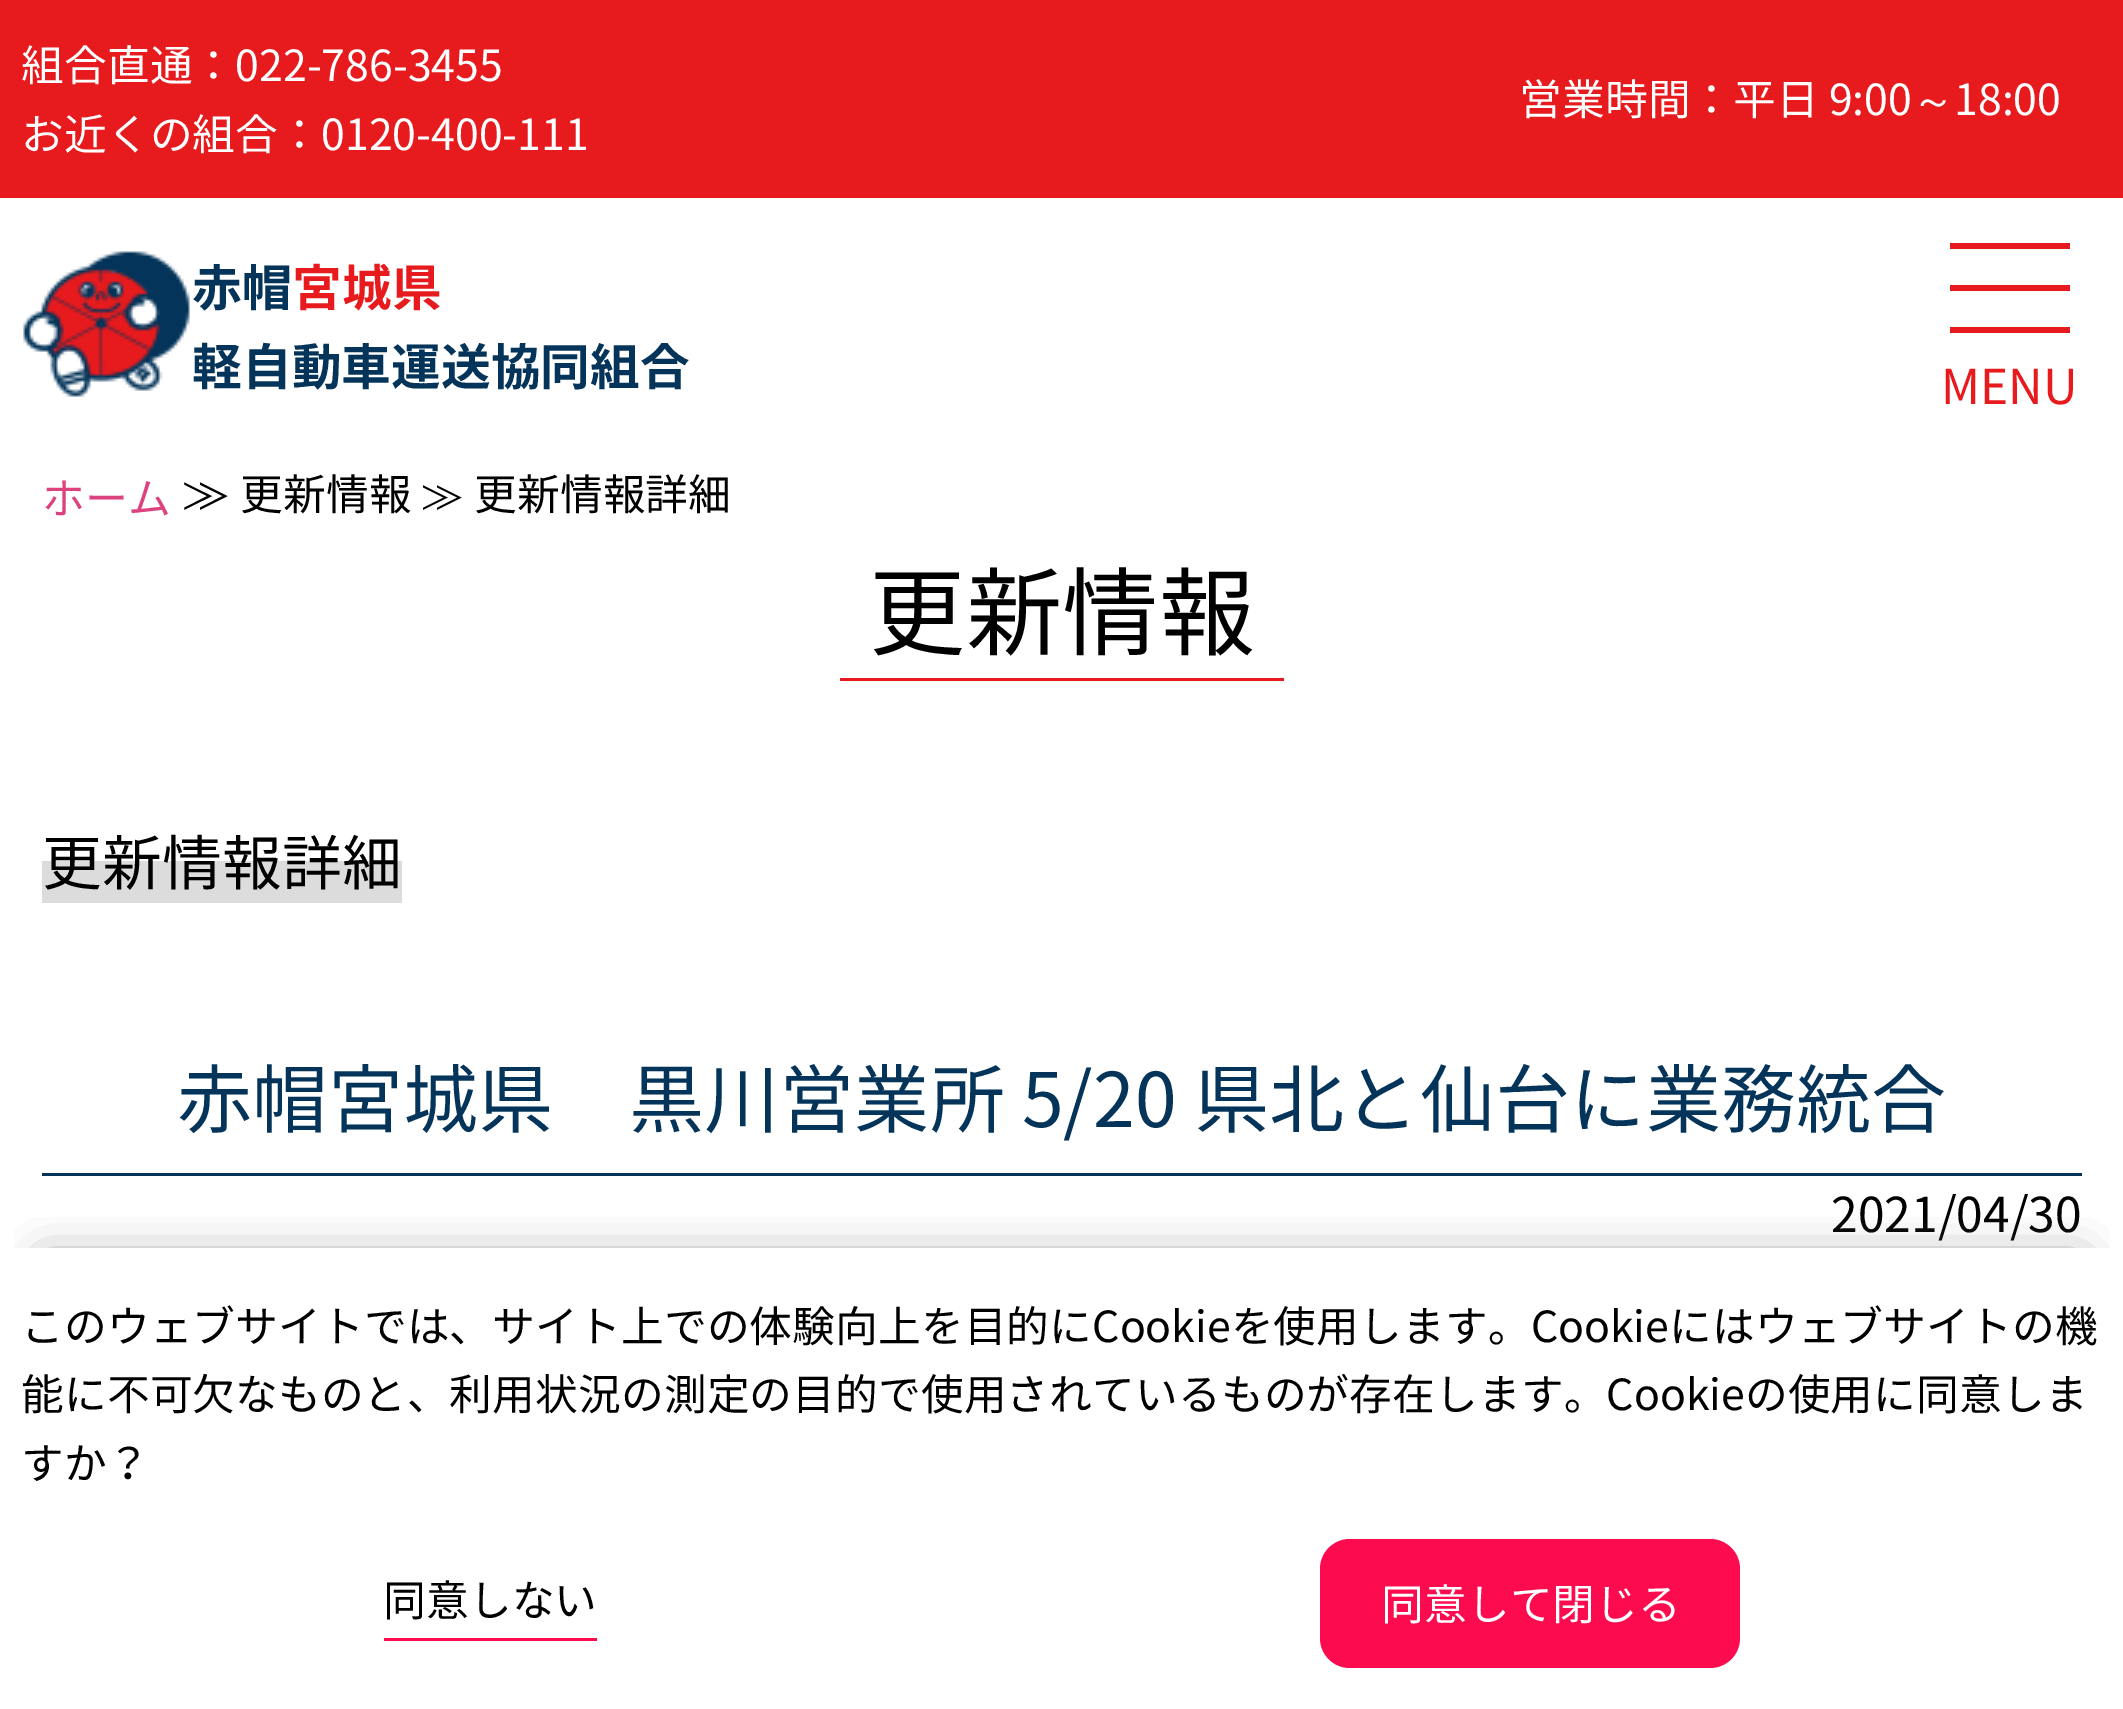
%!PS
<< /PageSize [2123 1709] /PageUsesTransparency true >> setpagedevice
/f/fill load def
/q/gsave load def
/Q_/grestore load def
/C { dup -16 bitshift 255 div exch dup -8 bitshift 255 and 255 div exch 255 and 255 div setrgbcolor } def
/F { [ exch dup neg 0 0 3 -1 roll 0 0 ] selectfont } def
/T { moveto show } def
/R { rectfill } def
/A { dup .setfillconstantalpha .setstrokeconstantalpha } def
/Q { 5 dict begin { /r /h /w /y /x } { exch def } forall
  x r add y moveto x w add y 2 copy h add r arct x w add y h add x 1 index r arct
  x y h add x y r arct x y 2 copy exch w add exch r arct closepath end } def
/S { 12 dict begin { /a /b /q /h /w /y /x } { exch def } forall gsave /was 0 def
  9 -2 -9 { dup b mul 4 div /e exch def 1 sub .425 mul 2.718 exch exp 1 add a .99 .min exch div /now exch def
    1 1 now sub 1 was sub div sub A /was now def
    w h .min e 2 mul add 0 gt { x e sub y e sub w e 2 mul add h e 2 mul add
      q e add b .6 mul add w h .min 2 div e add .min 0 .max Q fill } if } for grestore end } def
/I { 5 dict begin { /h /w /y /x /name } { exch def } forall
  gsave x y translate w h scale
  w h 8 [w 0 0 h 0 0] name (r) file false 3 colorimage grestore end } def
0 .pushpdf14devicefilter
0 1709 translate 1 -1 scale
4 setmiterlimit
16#FFFFFF C
0 0 2123 1709 R
16#E71A1D C
0 0 2123 198 R
/NotoSansJP-Regular 42.85 F
16#FFFFFF C
(組合直通：022-786-3455) 21 81 T
(お近くの組合：) 21 150 T
(0120-400-111) 321 150 T
(営業時間：平日 9:00) 1519 115 T
/WenQuanYiZenHei-Medium 42.85 F
(～) 1912 115 T
/NotoSansJP-Regular 42.85 F
(18:00) 1954 115 T
(1.rgb) 23 251 167 146 I
/NotoSansJP-Bold 49.75 F
16#043459 C
(赤帽) 192 306 T
16#E71A1D C
(宮城県) 292 306 T
16#043459 C
(軽自動車運送協同組合) 192 385 T
16#E71A1D C
1950 243 120 6 R
1950 285 120 6 R
1950 327 120 6 R
/NotoSansJP-Regular 48 F
(MENU) 1941 404 T
/NotoSansJP-Regular 42.85 F
16#DC427D C
(ホーム) 42 514 T
/WenQuanYiZenHei-Medium 48 F
16#000000 C
(≫) 182 510 T
/NotoSansJP-Regular 42.85 F
(更新情報) 240 510 T
/WenQuanYiZenHei-Medium 42.85 F
(≫) 421 510 T
/NotoSansJP-Regular 42.85 F
(更新情報詳細) 474 510 T
/NotoSansJP-Regular 96.5 F
(更新情報) 869 648 T
16#E71A1D C
840 678 444 3 R
16#DCDCDC C
42 861 360 42 R
/NotoSansJP-Regular 60 F
16#000000 C
(更新情報詳細) 42 885 T
16#043459 C
42 1173 2040 3 R
/NotoSansJP-Regular 75.25 F
(赤帽宮城県　黒川営業所 5/20) 177 1127 T
(県北と仙台に業務統合) 1194 1127 T
/NotoSansJP-Regular 48 F
16#000000 C
(2021/04/30) 1831 1232 T
q
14 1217 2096 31 rectclip
16#777777 C
45 1263 2034 372 0 22.5 1 S
Q_
/NotoSansJP-Regular 42.85 F
(このウェブサイトでは、サイト上での体験向上を目的にCookieを使用します。Cookieにはウェブサイトの機) 21 1342 T
(能に不可欠なものと、利用状況の測定の目的で使用されているものが存在します。Cookieの使用に同意しま) 21 1410 T
(すか？) 21 1479 T
16#FC0B4F C
384 1638 213 3 R
16#000000 C
(同意しない) 383 1616 T
16#FC0B4F C
1320 1539 420 129 30 Q f
16#FFFFFF C
(同意して閉じる) 1381 1620 T
.poppdf14devicefilter showpage
